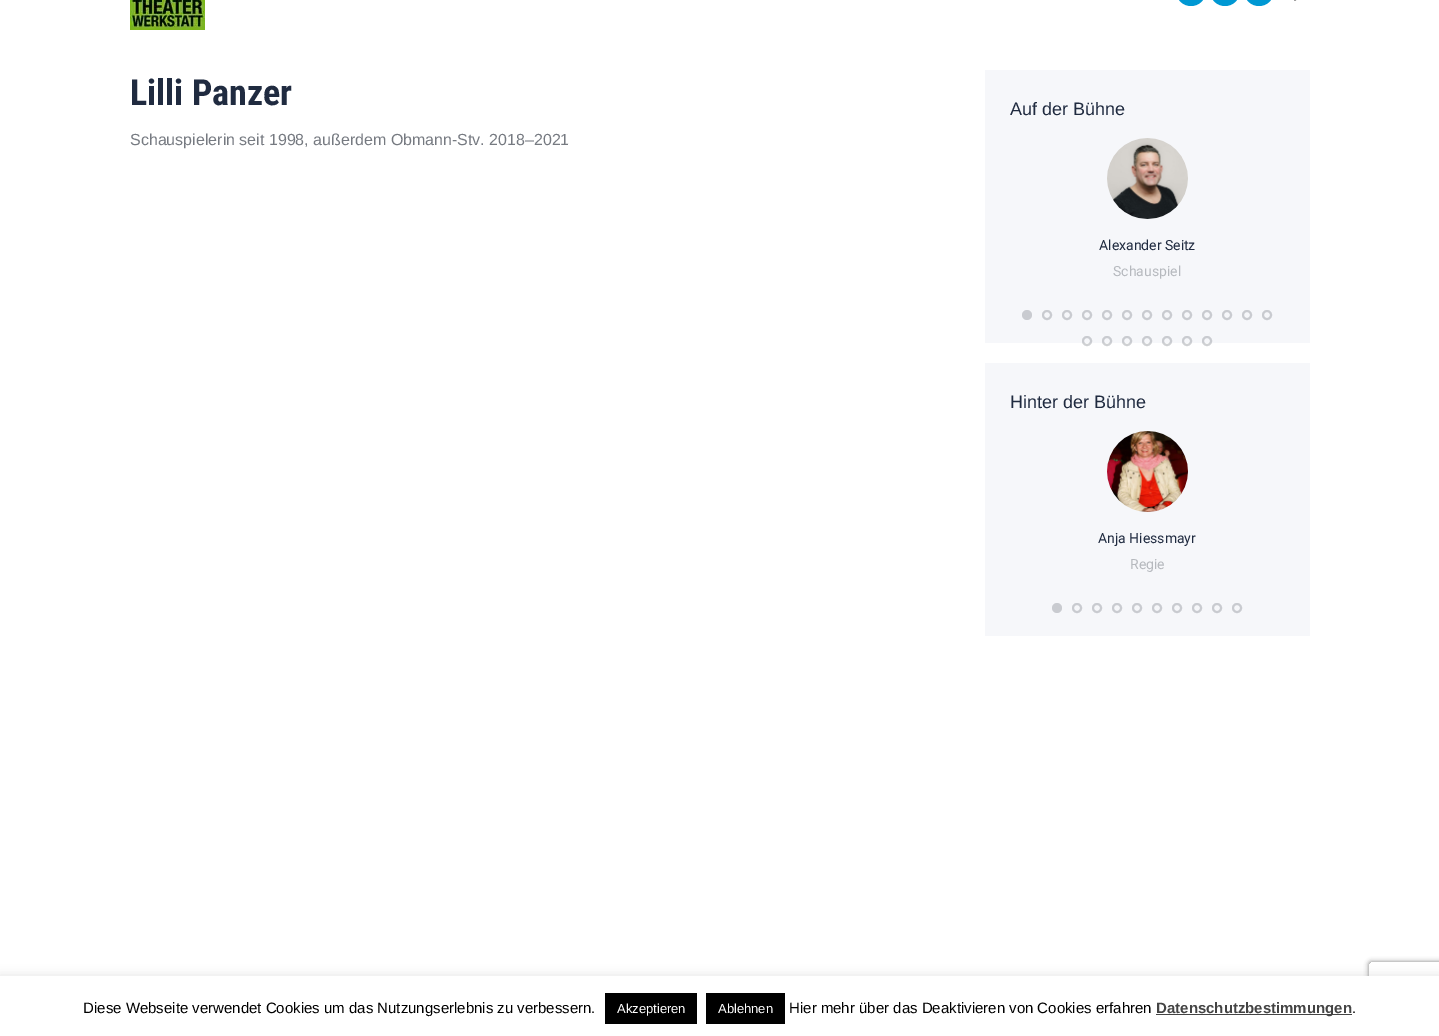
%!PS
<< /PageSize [1439 1036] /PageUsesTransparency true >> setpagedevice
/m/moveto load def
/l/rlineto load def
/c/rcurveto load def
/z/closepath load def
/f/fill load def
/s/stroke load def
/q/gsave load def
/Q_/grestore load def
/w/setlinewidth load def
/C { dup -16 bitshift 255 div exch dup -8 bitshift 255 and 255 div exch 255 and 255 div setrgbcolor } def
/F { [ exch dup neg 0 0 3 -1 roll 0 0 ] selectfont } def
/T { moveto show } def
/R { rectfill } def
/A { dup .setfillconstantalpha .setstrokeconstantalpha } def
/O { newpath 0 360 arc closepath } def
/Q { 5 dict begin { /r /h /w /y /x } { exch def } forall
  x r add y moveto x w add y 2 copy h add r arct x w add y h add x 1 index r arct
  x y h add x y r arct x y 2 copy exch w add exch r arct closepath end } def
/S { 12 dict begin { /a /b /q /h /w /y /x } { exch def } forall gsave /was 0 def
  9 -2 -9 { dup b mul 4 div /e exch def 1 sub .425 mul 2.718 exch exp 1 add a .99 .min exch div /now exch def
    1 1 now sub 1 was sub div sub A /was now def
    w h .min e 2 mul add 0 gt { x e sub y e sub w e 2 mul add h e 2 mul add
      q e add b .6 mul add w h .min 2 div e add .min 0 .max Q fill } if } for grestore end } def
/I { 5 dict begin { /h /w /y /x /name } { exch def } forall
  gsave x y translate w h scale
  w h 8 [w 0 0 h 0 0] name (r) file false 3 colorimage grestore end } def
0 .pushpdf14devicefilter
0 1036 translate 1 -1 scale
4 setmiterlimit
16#FFFFFF C
0 0 1439 1036 R
16#0098D3 C
1176 -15 30 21 15 Q f
1210 -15 30 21 15 Q f
1244 -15 30 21 15 Q f
(1.rgb) 1294 0 3 1 I
(2.rgb) 130 0 75 30 I
/RobotoCondensed-Bold 36 F
16#202B40 C
(Lilli Panzer) 130 105 T
/LiberationSans-Regular 16 F
16#767A81 C
(Schauspielerin seit 1998, außerdem Obmann-Stv. 2018–2021) 130 145 T
16#F6F7FA C
985 70 325 273 R
/LiberationSans-Regular 18 F
16#202B40 C
(Auf der Bühne) 1010 115 T
(3.rgb) 1107 138 81 81 I
/Roboto-Regular 14 F
(Alexander Seitz) 1099 250 T
16#B6B9BE C
(Schauspiel) 1113 276 T
16#C9CBD0 C
1027 315 5 O f
2 w
1047 315 4 O s
1067 315 4 O s
1087 315 4 O s
1107 315 4 O s
1127 315 4 O s
1147 315 4 O s
1167 315 4 O s
1187 315 4 O s
1207 315 4 O s
1227 315 4 O s
1247 315 4 O s
1267 315 4 O s
0.35 A
16#767A81 C
1087 341 4 O s
1107 341 4 O s
1127 341 4 O s
1147 341 4 O s
1167 341 4 O s
1187 341 4 O s
1207 341 4 O s
1 A
16#F6F7FA C
985 363 325 273 R
/LiberationSans-Regular 18 F
16#202B40 C
(Hinter der Bühne) 1010 408 T
(4.rgb) 1107 431 81 81 I
/Roboto-Regular 14 F
(Anja Hiessmayr) 1098 543 T
16#B6B9BE C
(Regie) 1130 569 T
16#C9CBD0 C
1057 608 5 O f
1077 608 4 O s
1097 608 4 O s
1117 608 4 O s
1137 608 4 O s
1157 608 4 O s
1177 608 4 O s
1197 608 4 O s
1217 608 4 O s
1237 608 4 O s
16#ACABAB C
0 975 1439 60 0 5 .3 S
q
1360 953 m 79 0 l 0 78 l -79 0 l z 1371 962 m 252 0 l 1 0 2 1 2 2 c 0 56 l 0 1 -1 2 -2 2 c -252 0 l -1 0 -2 -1 -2 -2 c 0 -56 l 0 -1 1 -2 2 -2 c z eoclip newpath
16#808080 C
1369 962 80 60 2 2.5 1 S
Q_
16#FFFFFF C
0 976 1439 60 R
/LiberationSans-Regular 15 F
16#000000 C
(Diese Webseite verwendet Cookies um das Nutzungserlebnis zu verbessern.) 83 1013 T
605 993 92 31 R
/LiberationSans-Regular 13 F
16#FFFFFF C
(Akzeptieren) 617 1013 T
16#000000 C
706 993 79 31 R
16#FFFFFF C
(Ablehnen) 718 1013 T
/LiberationSans-Regular 15 F
16#000000 C
(Hier mehr über das Deaktivieren von Cookies erfahren) 789 1013 T
16#444444 C
1156 1014 196 1 R
/LiberationSans-Bold 15 F
(Datenschutzbestimmungen) 1156 1013 T
/LiberationSans-Regular 15 F
16#000000 C
(.) 1352 1013 T
.poppdf14devicefilter showpage
